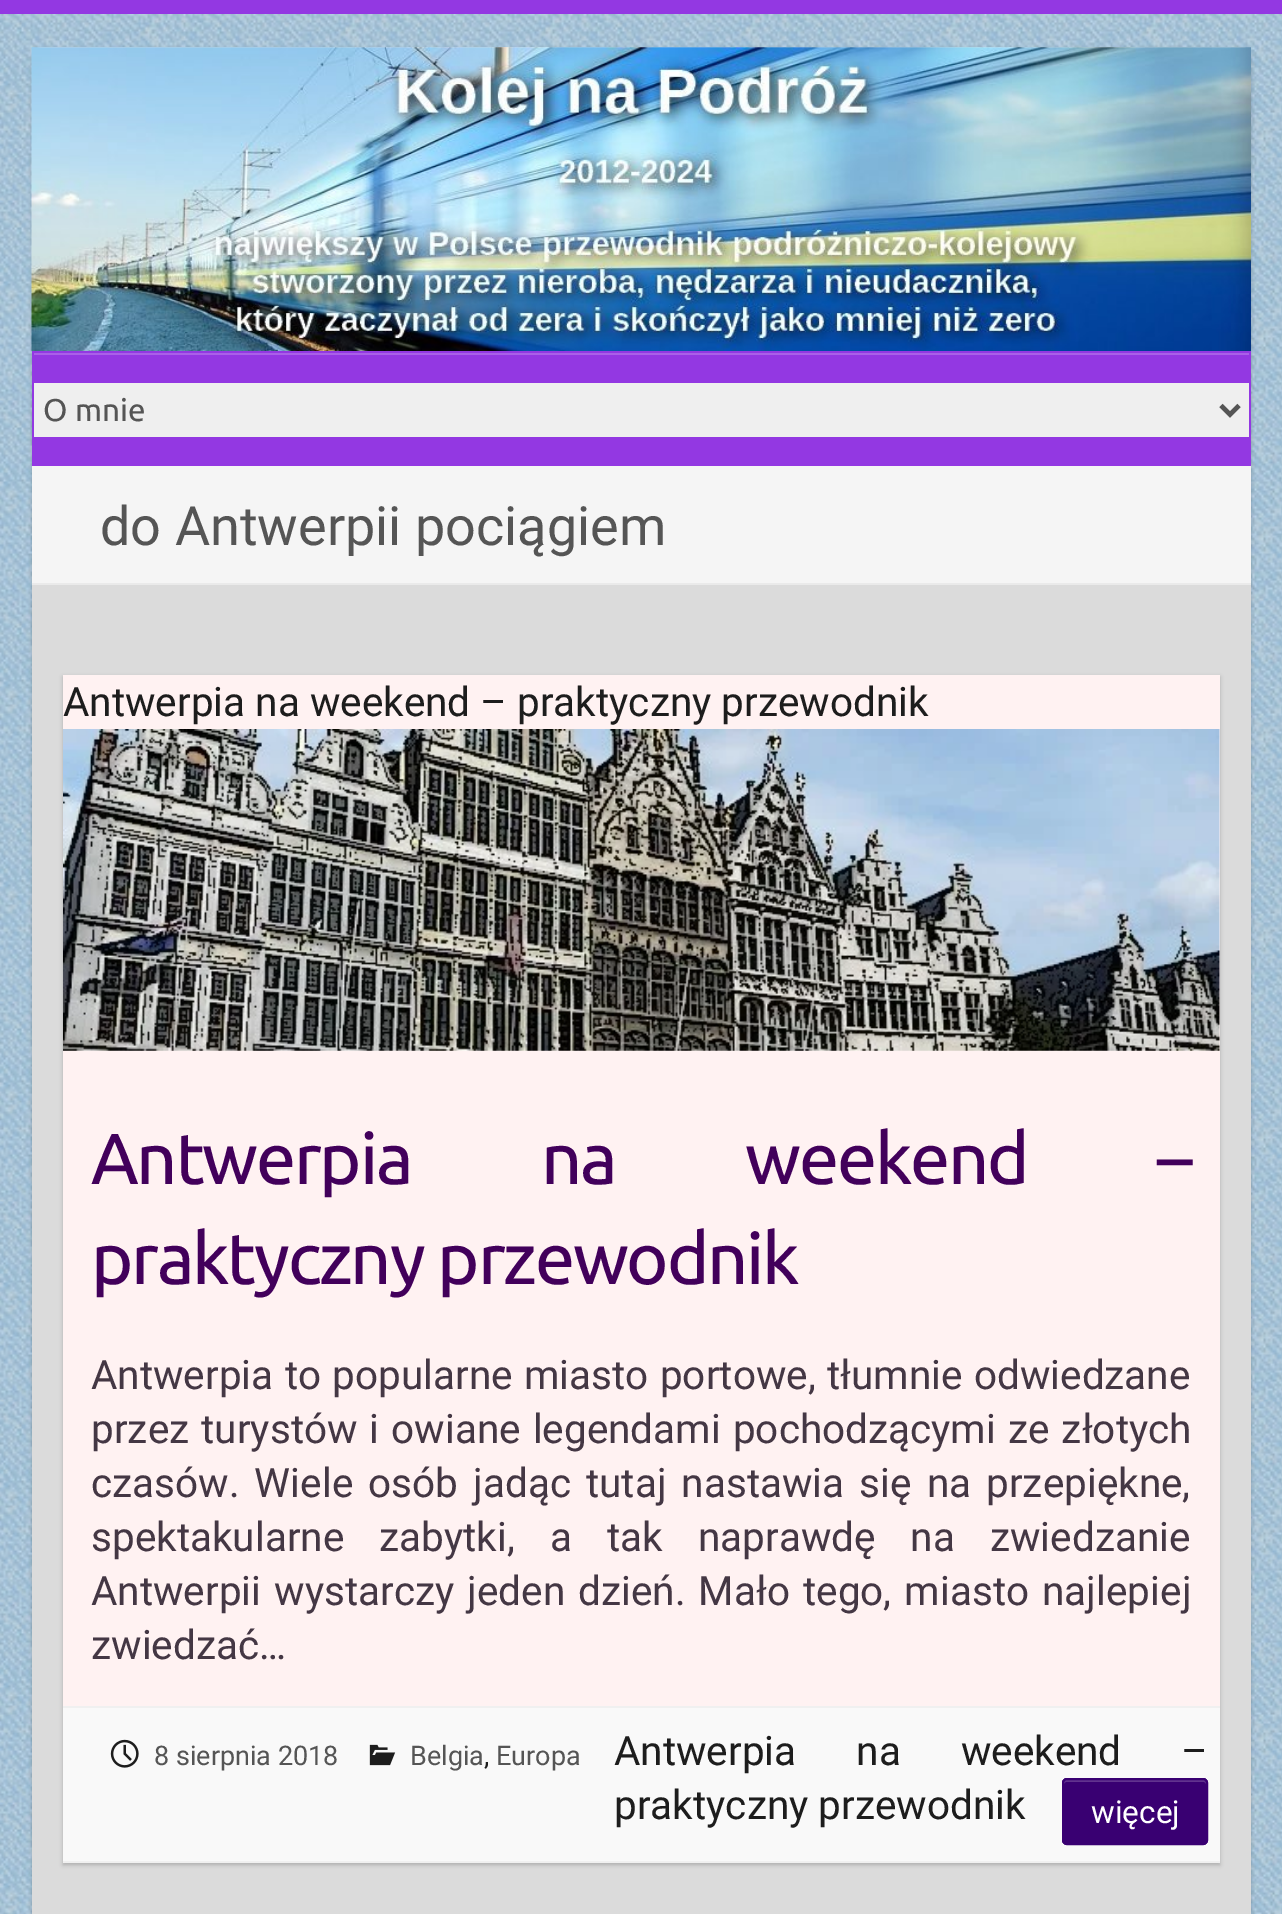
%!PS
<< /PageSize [1282 1914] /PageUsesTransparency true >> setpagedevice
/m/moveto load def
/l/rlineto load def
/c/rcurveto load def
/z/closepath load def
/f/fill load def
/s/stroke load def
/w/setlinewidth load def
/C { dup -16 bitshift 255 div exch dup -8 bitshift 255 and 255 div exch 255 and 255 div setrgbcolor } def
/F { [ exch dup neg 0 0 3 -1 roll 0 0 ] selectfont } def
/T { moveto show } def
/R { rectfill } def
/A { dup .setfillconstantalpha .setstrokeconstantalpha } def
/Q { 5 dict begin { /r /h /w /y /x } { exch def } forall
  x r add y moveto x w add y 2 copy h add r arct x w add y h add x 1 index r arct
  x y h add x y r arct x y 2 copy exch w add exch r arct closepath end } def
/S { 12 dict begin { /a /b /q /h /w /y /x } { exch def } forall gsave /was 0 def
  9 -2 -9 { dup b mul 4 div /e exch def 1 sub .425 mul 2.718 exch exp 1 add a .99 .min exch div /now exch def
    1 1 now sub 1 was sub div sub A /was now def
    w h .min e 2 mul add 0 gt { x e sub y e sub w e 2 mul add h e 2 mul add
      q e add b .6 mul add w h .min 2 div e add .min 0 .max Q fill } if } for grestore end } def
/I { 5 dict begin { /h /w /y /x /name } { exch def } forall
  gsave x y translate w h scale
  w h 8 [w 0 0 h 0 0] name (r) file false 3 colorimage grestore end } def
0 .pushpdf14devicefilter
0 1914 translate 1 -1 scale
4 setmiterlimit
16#FFFFFF C
0 0 1282 1914 R
(1.rgb) 0 14 1282 1900 I
16#9338E2 C
0 0 1282 14 R
16#000000 C
32 50 1219 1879 9 2 .2 S
16#DBDBDB C
32 47 1219 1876 9 Q f
(2.rgb) 31 47 1220 304 I
16#9338E2 C
32 351 1219 115 R
16#A960E8 C
34 353 1215 2 R
16#EFEFEF C
34 383 1215 54 R
16#555555 C
4.5 w
1221 405.5 m 9 9 l 9 -9 l s
/Ubuntu-Regular 31.5 F
(O mnie) 43 421 T
16#F5F5F5 C
32 466 1219 117 R
16#EAEAEA C
32 583 1219 2 R
/Roboto-Regular 54 F
16#555555 C
(do Antwerpii pociągiem) 100 545 T
16#000000 C
63 677 1157 1188 0 2 .2 S
16#FFF2F2 C
63 675 1157 1031 R
/Roboto-Regular 40.5 F
16#1D1D1D C
(Antwerpia na weekend – praktyczny przewodnik) 63 716 T
(3.rgb) 63 729 1157 322 I
/Ubuntu-Regular 72 F
16#42005B C
91 1184 m 115.5 0 32 -2.25 0 (Antwerpia na weekend –) awidthshow
91 1284 m -2.25 0 (praktyczny przewodnik) ashow
/Roboto-Regular 40.5 F
16#443744 C
91 1389 m 1.25 0 32 (Antwerpia to popularne miasto portowe, tłumnie odwiedzane) widthshow
91 1443 m 2 0 32 (przez turystów i owiane legendami pochodzącymi ze złotych) widthshow
91 1497 m 5 0 32 (czasów. Wiele osób jadąc tutaj nastawia się na przepiękne,) widthshow
91 1551 m 25 0 32 (spektakularne zabytki, a tak naprawdę na zwiedzanie) widthshow
91 1605 m 3 0 32 (Antwerpii wystarczy jeden dzień. Mało tego, miasto najlepiej) widthshow
(zwiedzać…) 91 1659 T
16#F9F9F9 C
63 1708 1157 153 R
16#F0F0F0 C
63 1706 1157 2 R
63 1861 1157 2 R
(4.rgb) 110 1739 29 29 I
/Roboto-Regular 27 F
16#555555 C
(8 sierpnia 2018) 154 1765 T
(5.rgb) 369 1744 27 22 I
(Belgia) 410 1765 T
16#1D1D1D C
(,) 484 1765 T
16#555555 C
(Europa) 496 1765 T
/Roboto-Regular 40.5 F
16#1D1D1D C
614 1765 m 50 0 32 (Antwerpia na weekend –) widthshow
(praktyczny przewodnik) 614 1819 T
16#390072 C
1062 1778 146 67 5 Q f
16#61338E C
1066 1782 m 138 0 l 1 0 2 1 2 2 c 0 -1 0 -3 -1 -4 c -139 0 l -2 0 -2 2 -2 4 c 0 -1 1 -2 2 -2 c z f
16#390072 C
2 w
1063 1779 144 65 4 Q s
/Roboto-Regular 31.5 F
16#FFFFFF C
(więcej) 1091 1823 T
.poppdf14devicefilter showpage
